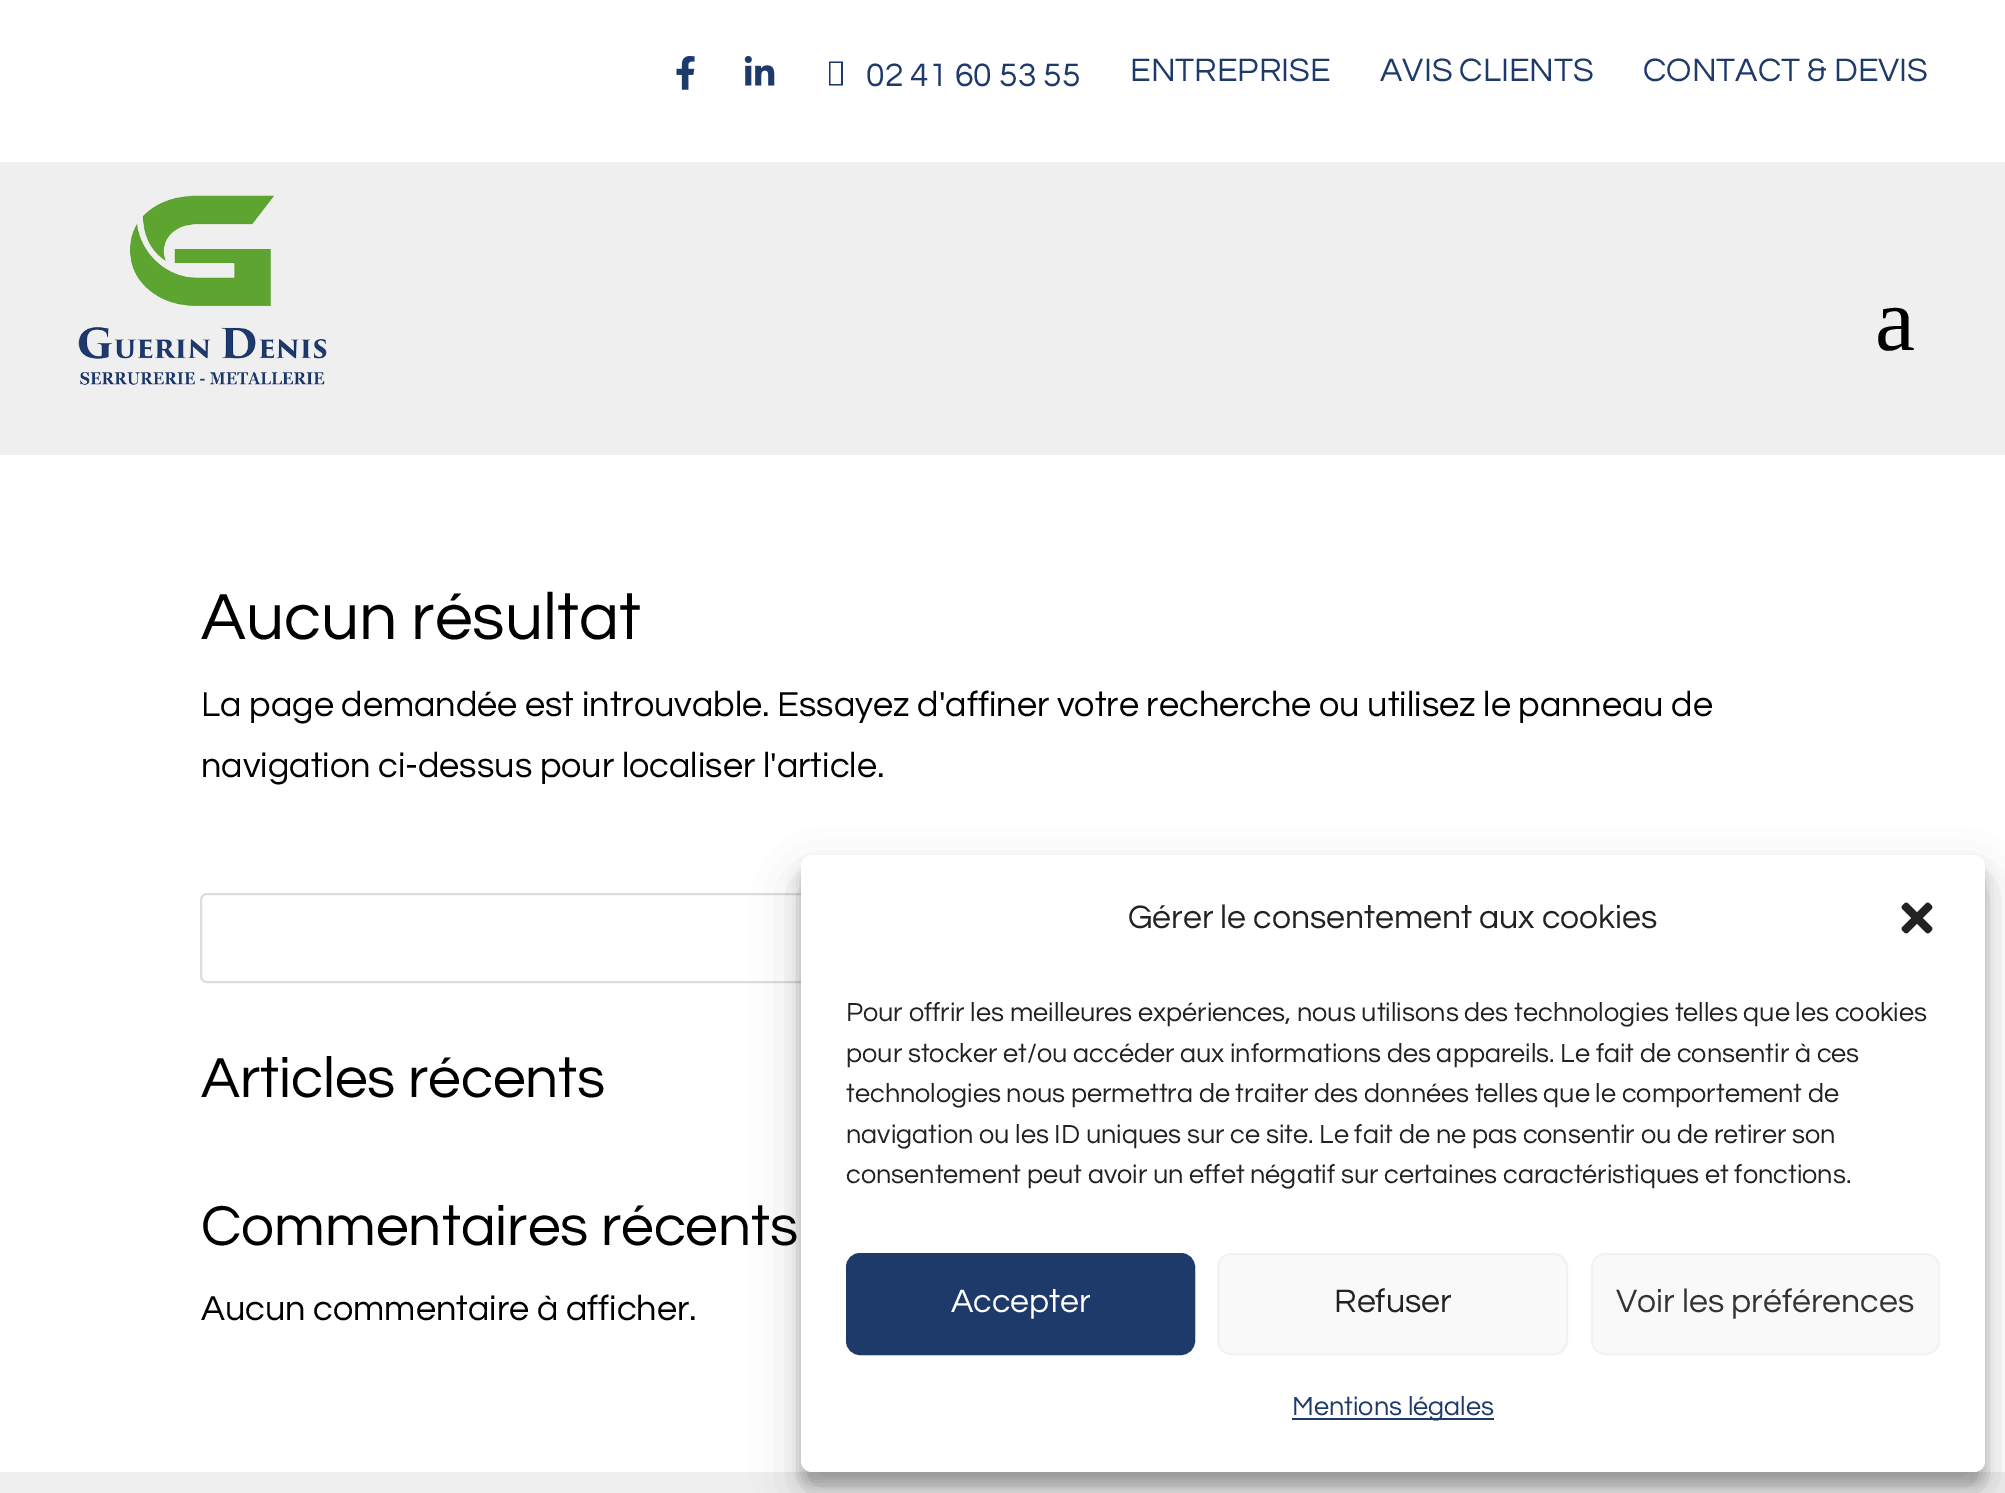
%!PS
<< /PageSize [2005 1493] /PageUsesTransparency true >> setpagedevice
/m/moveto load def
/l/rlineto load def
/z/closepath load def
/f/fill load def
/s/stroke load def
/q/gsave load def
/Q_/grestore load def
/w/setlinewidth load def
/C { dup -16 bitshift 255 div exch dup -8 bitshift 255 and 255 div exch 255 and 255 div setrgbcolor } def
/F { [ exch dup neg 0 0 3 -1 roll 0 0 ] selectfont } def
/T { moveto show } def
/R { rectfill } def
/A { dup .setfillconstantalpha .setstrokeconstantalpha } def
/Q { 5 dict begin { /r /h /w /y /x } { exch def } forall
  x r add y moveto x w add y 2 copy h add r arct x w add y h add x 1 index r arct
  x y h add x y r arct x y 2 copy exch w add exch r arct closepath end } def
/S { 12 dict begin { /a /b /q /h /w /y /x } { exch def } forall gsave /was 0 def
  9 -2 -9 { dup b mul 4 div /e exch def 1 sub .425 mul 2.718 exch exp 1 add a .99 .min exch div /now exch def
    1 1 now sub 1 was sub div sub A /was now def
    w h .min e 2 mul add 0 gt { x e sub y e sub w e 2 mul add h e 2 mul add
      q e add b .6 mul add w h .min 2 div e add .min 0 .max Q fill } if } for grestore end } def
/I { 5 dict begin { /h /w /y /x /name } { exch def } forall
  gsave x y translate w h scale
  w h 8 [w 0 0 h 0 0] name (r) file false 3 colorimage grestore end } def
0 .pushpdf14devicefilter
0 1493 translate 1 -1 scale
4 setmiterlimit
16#FFFFFF C
0 0 2005 1493 R
(1.rgb) 676 56 19 34 I
(2.rgb) 744 56 31 30 I
16#1E3A6B C
829 85.5 m 0 -24 l 14 0 l 0 24 l z 830.5 84 m 10.5 0 l 0 -21 l -10.5 0 l z f
/Questrial-Regular 33.75 F
(02 41 60 53 55) 866 86 T
(ENTREPRISE) 1130 81 T
(AVIS CLIENTS) 1380 81 T
(CONTACT & DEVIS) 1643 81 T
16#EFEFEF C
0 162 2005 293 R
(3.rgb) 78 195 249 190 I
/LiberationSerif-Regular 90 F
16#000000 C
(a) 1875 350 T
/Questrial-Regular 67.5 F
(Aucun résultat) 201 639 T
/Questrial-Regular 36 F
(La page demandée est introuvable. Essayez d'affiner votre recherche ou utilisez le panneau de) 201 716 T
(navigation ci-dessus pour localiser l'article.) 201 777 T
16#DDDDDD C
2 w
201 894 1605 88 6 Q s
/Questrial-Regular 58.5 F
16#000000 C
(Articles récents) 201 1097 T
(Commentaires récents) 201 1245 T
/Questrial-Regular 36 F
(Aucun commentaire à afficher.) 201 1320 T
16#EFEFEF C
0 1472 2005 21 R
16#000000 C
801 869 1184 616 11 7 .23 S
801 878 1184 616 11 22.5 .19 S
16#FFFFFF C
801 855 1184 617 11 Q f
/Questrial-Regular 33.75 F
16#222222 C
(Gérer le consentement aux cookies) 1128 928 T
(4.rgb) 1901 902 32 32 I
/Questrial-Regular 27 F
(Pour offrir les meilleures expériences, nous utilisons des technologies telles que les cookies) 846 1021 T
(pour stocker et/ou accéder aux informations des appareils. Le fait de consentir à ces) 846 1062 T
(technologies nous permettra de traiter des données telles que le comportement de) 846 1102 T
(navigation ou les ID uniques sur ce site. Le fait de ne pas consentir ou de retirer son) 846 1143 T
(consentement peut avoir un effet négatif sur certaines caractéristiques et fonctions.) 846 1183 T
16#1E3A6B C
847 1254 347 100 13 Q q f Q_
s
/Questrial-Regular 33.75 F
16#FFFFFF C
(Accepter) 951 1312 T
16#F9F9F9 C
1218 1254 349 100 13 Q q f Q_
16#F2F2F2 C
s
16#222222 C
(Refuser) 1334 1312 T
16#F9F9F9 C
1592 1254 347 100 13 Q q f Q_
16#F2F2F2 C
s
16#333333 C
(Voir les préférences) 1616 1312 T
16#1E3A6B C
1292 1418 202 2 R
/Questrial-Regular 27 F
(Mentions légales) 1292 1415 T
.poppdf14devicefilter showpage
